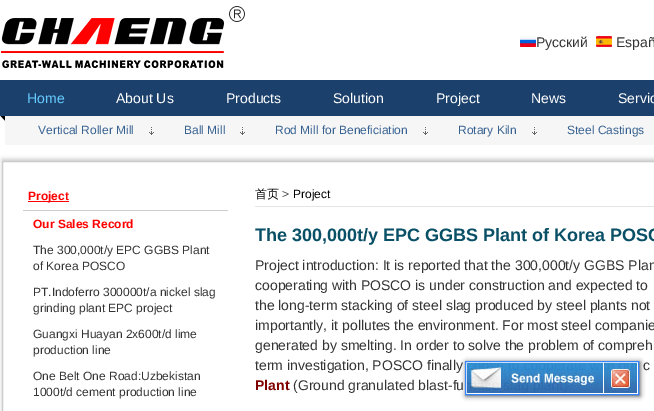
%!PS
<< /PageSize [654 411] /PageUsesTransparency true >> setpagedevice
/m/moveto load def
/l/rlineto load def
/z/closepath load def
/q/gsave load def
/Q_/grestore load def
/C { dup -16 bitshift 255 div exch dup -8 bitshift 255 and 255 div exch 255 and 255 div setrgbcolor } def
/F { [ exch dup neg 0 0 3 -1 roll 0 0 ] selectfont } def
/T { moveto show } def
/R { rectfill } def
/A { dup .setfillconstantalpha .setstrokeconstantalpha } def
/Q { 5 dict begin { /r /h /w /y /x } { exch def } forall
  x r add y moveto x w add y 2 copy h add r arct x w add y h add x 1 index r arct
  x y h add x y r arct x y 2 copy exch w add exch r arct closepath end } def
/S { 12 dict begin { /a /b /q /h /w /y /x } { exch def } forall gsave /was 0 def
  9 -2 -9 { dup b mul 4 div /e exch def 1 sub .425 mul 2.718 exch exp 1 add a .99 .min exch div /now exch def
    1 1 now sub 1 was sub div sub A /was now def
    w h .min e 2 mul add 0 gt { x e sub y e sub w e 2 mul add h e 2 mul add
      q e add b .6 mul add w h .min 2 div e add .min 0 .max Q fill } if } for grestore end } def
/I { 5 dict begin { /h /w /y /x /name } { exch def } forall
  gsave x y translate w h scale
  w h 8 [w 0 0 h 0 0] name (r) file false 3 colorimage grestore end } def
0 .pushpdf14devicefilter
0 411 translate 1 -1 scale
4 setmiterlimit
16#FFFFFF C
0 0 654 411 R
(1.rgb) 1 6 244 62 I
(2.rgb) 520 36 16 11 I
/LiberationSans-Regular 14 F
16#333333 C
(Русский) 536 47 T
(3.rgb) 596 36 16 11 I
(Españ) 616 47 T
(4.rgb) 0 80 654 65 I
16#66CCFF C
(Home) 27 103 T
16#FFFFFF C
(About Us) 116 103 T
(Products) 226 103 T
(Solution) 333 103 T
(Project) 436 103 T
(News) 531 103 T
(Servic) 618 103 T
(5.rgb) 0 116 5 29 I
(6.rgb) 149 126 5 10 I
/LiberationSans-Regular 12 F
16#376191 C
(Vertical Roller Mill) 38 134 T
(6.rgb) 240 126 5 10 I
(Ball Mill) 184 134 T
(6.rgb) 423 126 5 10 I
(Rod Mill for Beneficiation) 275 134 T
(6.rgb) 532 126 5 10 I
(Rotary Kiln) 458 134 T
(Steel Castings) 567 134 T
q
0 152 m 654 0 l 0 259 l -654 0 l z 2 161 m 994 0 l 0 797 l -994 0 l z eoclip newpath
16#000000 C
2 159 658 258 0 2 .2 S
Q_
16#CCCCCC C
2.5 161.5 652 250 rectstroke
23 210 205 1 R
16#FF0000 C
28 201 41 1 R
/LiberationSans-Bold 12 F
(Project) 28 200 T
(Our Sales Record) 33 228 T
/LiberationSans-Regular 12 F
16#333333 C
(The 300,000t/y EPC GGBS Plant) 33 254 T
(of Korea POSCO) 33 270 T
(PT.Indoferro 300000t/a nickel slag) 33 296 T
(grinding plant EPC project) 33 312 T
(Guangxi Huayan 2x600t/d lime) 33 338 T
(production line) 33 354 T
(One Belt One Road:Uzbekistan) 33 380 T
(1000t/d cement production line) 33 396 T
16#E5E5E5 C
255 206 399 1 R
/WenQuanYiZenHei-Medium 12 F
16#000000 C
(首页) 255 198 T
/LiberationSans-Regular 12 F
16#4C4C4C C
(>) 282 198 T
16#000000 C
(Project) 293 198 T
/LiberationSans-Bold 18 F
16#095066 C
(The 300,000t/y EPC GGBS Plant of Korea POSC) 255 241 T
/LiberationSans-Regular 14 F
16#333333 C
(Project introduction: It is reported that the 300,000t/y GGBS Plan) 255 270 T
(cooperating with POSCO is under construction and expected to) 255 290 T
(the long-term stacking of steel slag produced by steel plants not) 255 310 T
(importantly, it pollutes the environment. For most steel companie) 255 330 T
(generated by smelting. In order to solve the problem of compreh) 255 350 T
(term investigation, POSCO finally) 255 370 T
(c) 643 370 T
/LiberationSans-Bold 14 F
16#800000 C
(Plant) 255 390 T
/LiberationSans-Regular 14 F
16#333333 C
(\(Ground granulated blast-fu) 293 390 T
q
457 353 m 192 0 l 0 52 l -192 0 l z 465 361 m 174 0 l 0 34 l -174 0 l z eoclip newpath
16#292929 C
466 362 174 34 0 2.5 .8 S
Q_
0.8 A
16#0066FF C
465.5 361.5 173 33 rectstroke
1 A
(7.rgb) 467 363 136 30 I
(8.rgb) 603 363 34 30 I
.poppdf14devicefilter showpage
